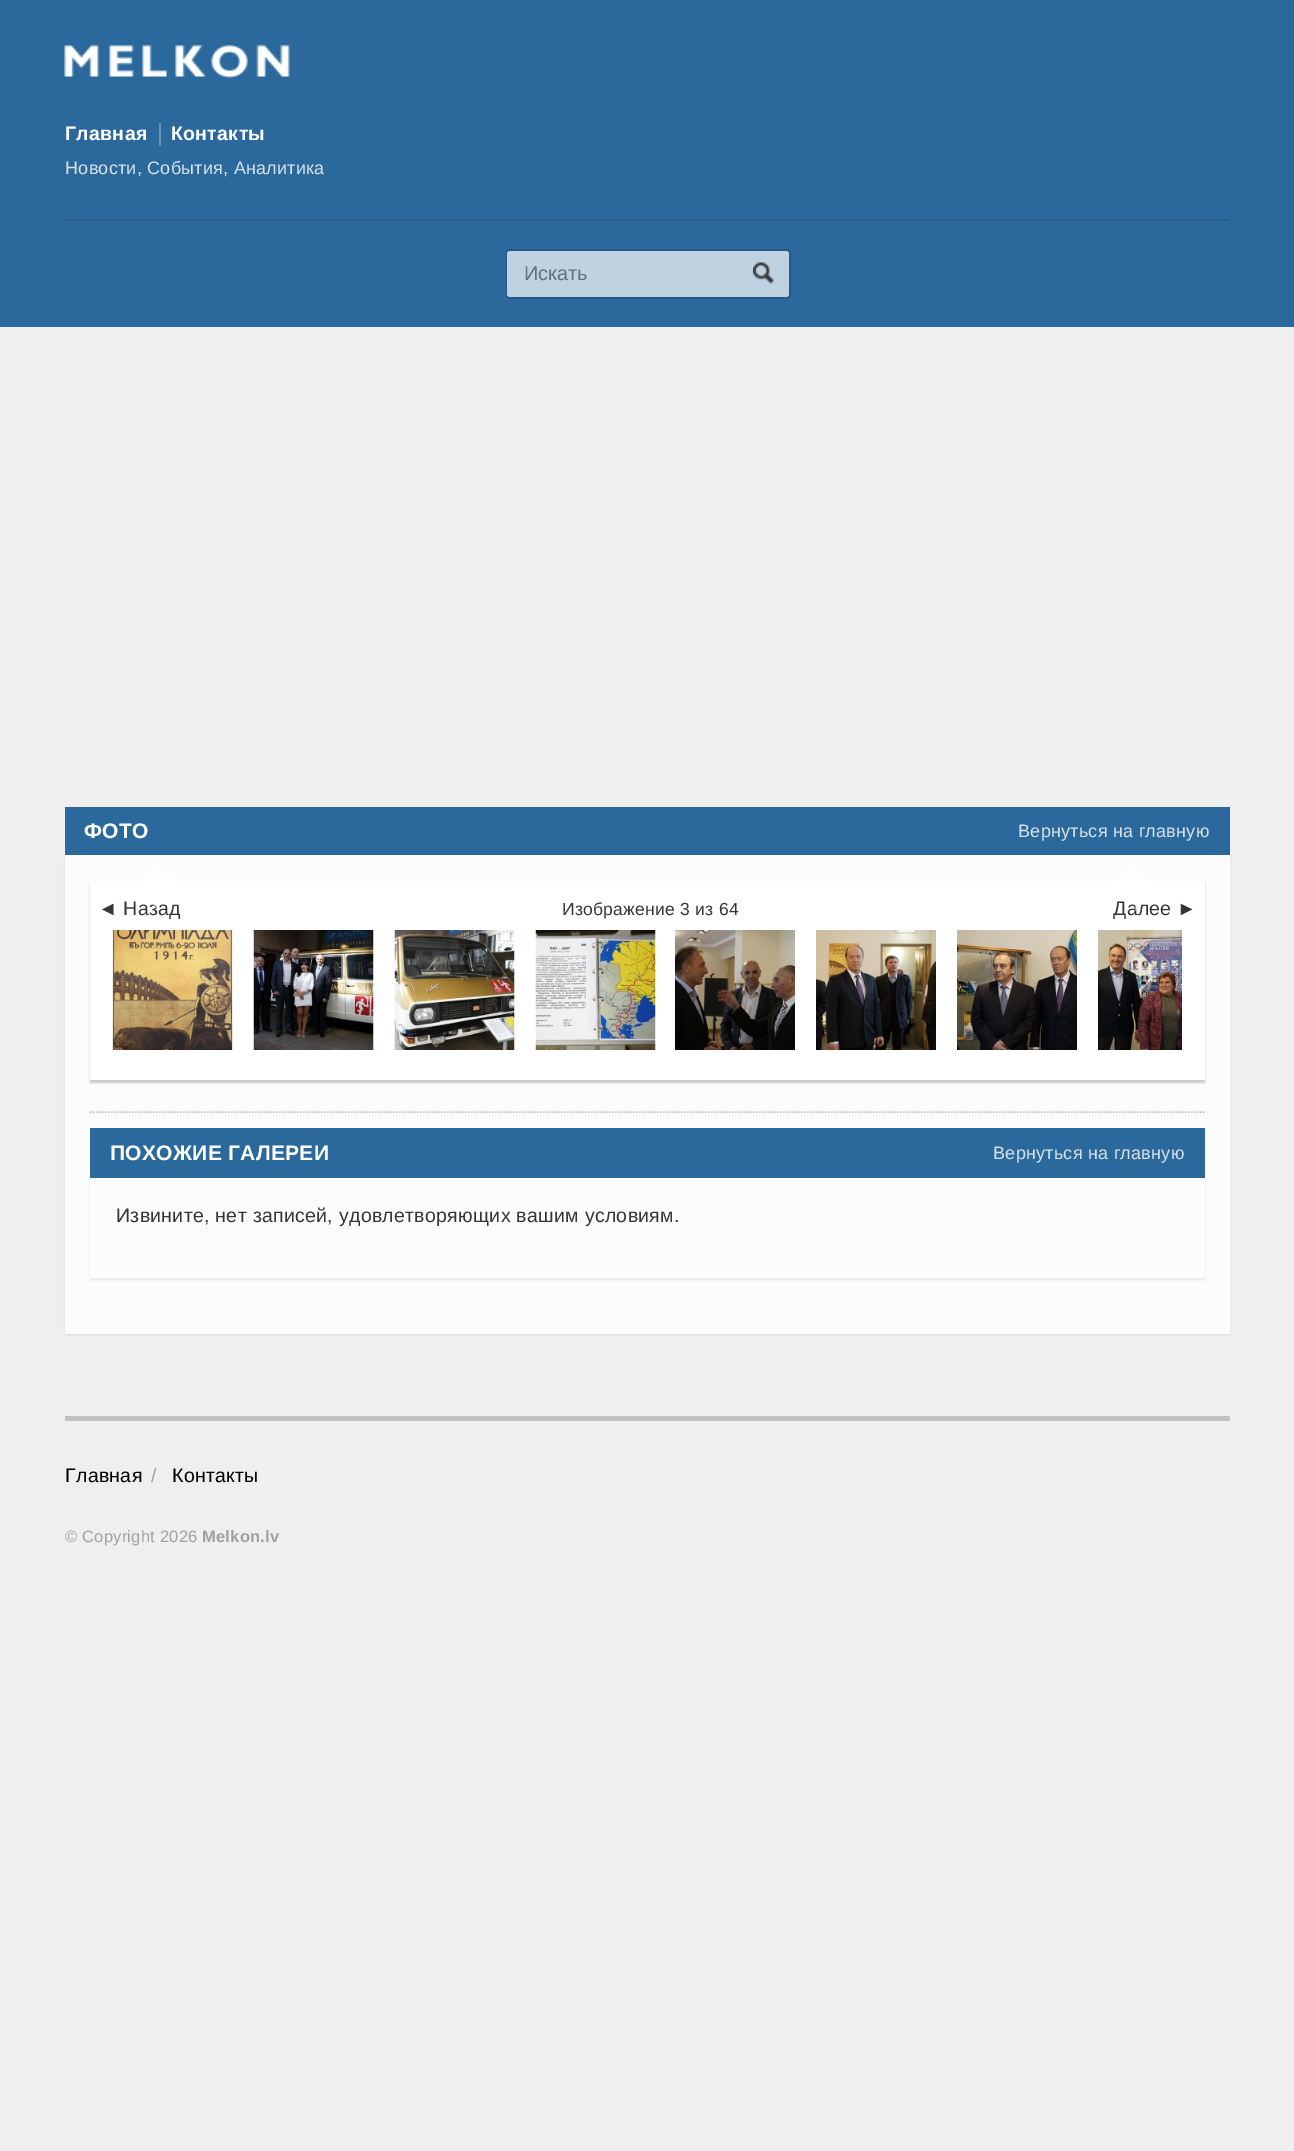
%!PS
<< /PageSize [1294 2151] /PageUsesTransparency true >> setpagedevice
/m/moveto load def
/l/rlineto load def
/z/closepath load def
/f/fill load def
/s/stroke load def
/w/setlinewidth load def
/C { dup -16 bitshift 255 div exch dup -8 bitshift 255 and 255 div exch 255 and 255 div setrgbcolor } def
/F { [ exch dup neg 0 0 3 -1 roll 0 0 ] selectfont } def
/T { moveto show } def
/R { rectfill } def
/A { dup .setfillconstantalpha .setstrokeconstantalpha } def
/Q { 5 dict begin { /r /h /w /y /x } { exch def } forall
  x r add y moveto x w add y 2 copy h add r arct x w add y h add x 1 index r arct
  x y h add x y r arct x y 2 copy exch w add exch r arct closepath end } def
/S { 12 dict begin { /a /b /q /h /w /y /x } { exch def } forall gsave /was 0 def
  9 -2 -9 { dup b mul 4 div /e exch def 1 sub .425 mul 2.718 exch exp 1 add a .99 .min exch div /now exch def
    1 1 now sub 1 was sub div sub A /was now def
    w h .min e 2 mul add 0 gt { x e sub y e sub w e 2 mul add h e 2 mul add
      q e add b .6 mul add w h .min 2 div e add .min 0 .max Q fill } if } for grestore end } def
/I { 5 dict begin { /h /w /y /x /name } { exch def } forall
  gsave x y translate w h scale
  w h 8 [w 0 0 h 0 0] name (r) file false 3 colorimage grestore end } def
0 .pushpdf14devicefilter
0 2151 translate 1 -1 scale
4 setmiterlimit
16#F0EFEF C
0 0 1294 2151 R
16#2B699C C
0 0 1294 327 R
(1.rgb) 64 45 226 34 I
/LiberationSans-Bold 19.5 F
16#FFFFFF C
65 140 m .3 0 (Главная) ashow
16#6B96BA C
159 123 2 23 R
16#FFFFFF C
171 140 m .3 0 (Контакты) ashow
/LiberationSans-Regular 18 F
16#D5E1EB C
65 174 m .25 0 (Новости, События, Аналитика) ashow
16#275F8C C
65 219 1165 2 R
16#255A86 C
2 w
507 250 283 48 4 Q s
16#BFD2E1 C
507 251 282 46 3 Q f
/LiberationSans-Regular 20 F
16#5F7181 C
(Искать) 524 280 T
(2.rgb) 753 262 21 22 I
16#2B699C C
65 807 1165 48 R
/LiberationSans-Bold 21 F
16#FFFFFF C
84 838 m .3 0 (ФОТО) ashow
/LiberationSans-Regular 18 F
16#D5E1EB C
1018 837 m .25 0 (Вернуться на главную) ashow
16#000000 C
65 857 1165 478 0 1 .08 S
16#FCFCFC C
65 855 1165 479 R
16#000000 C
90 884 1115 199 0 1 .2 S
16#FFFFFF C
90 881 1115 199 R
/LiberationSans-Regular 19.5 F
16#363635 C
98 915 m .3 0 (◄ Назад) ashow
0.5 A
16#FFFFFF C
159 865 m 0 12 l 21 0 l 0 22 l -21 0 l 0 12 l -23 -23 l z f
1 A
16#363635 C
1113 915 m .3 0 (Далее ►) ashow
0.5 A
16#FFFFFF C
1135 865 m 23 23 l -23 23 l 0 -12 l -21 0 l 0 -22 l 21 0 l z f
/LiberationSans-Regular 17.5 F
1 A
16#363635 C
562 915 m .25 0 (Изображение 3 из 64) ashow
(3.rgb) 112 930 121 120 I
(4.rgb) 253 930 121 120 I
(5.rgb) 394 930 121 120 I
(6.rgb) 535 930 121 120 I
(7.rgb) 675 930 120 120 I
(8.rgb) 816 930 120 120 I
(9.rgb) 957 930 120 120 I
(10.rgb) 1098 930 84 120 I
16#C0BFBF C
1.5 w
[1.5 1.5] 0 setdash
90 1112 m 1114.5 0 l s
16#2B699C C
90 1128 1115 50 R
/LiberationSans-Bold 21 F
16#FFFFFF C
110 1160 m .3 0 (ПОХОЖИЕ ГАЛЕРЕИ) ashow
/LiberationSans-Regular 18 F
16#D5E1EB C
993 1159 m .25 0 (Вернуться на главную) ashow
16#000000 C
90 1179 1115 101 0 1 .08 S
16#FCFCFC C
90 1178 1115 100 R
/LiberationSans-Regular 19.5 F
16#363635 C
116 1222 m .3 0 (Извините, нет записей, удовлетворяющих вашим условиям.) ashow
16#C1C1C1 C
65 1416 1165 5 R
16#000000 C
65 1482 m .3 0 (Главная) ashow
16#A0A0A0 C
151 1482 m .3 0 (/) ashow
16#000000 C
172 1482 m .3 0 (Контакты) ashow
/LiberationSans-Regular 16.5 F
16#A0A0A0 C
65 1542 m .25 0 (© Copyright 2026) ashow
/LiberationSans-Bold 16.5 F
202 1542 m .25 0 (Melkon.lv) ashow
.poppdf14devicefilter showpage
